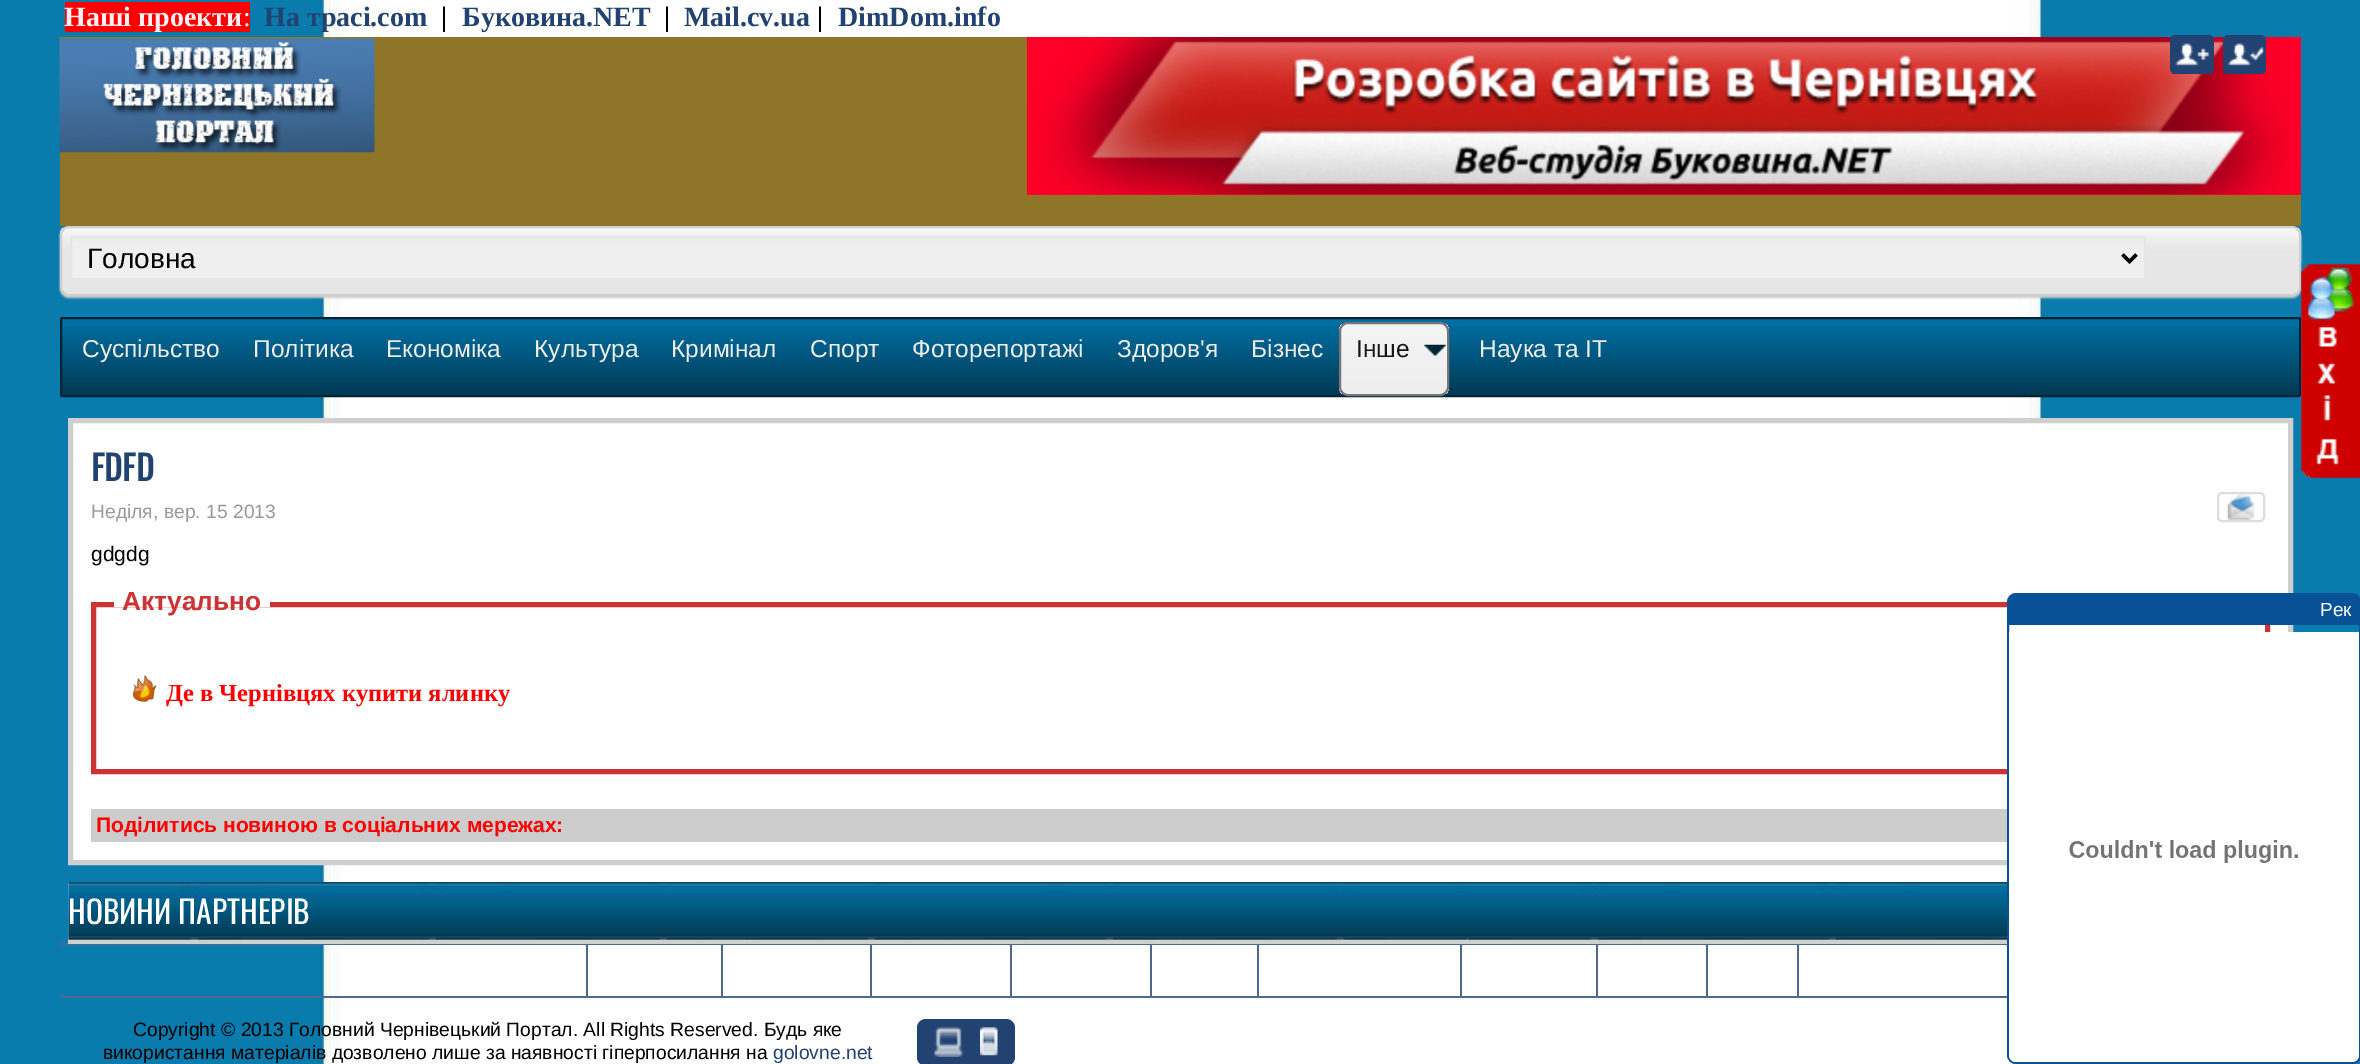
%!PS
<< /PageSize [2360 1064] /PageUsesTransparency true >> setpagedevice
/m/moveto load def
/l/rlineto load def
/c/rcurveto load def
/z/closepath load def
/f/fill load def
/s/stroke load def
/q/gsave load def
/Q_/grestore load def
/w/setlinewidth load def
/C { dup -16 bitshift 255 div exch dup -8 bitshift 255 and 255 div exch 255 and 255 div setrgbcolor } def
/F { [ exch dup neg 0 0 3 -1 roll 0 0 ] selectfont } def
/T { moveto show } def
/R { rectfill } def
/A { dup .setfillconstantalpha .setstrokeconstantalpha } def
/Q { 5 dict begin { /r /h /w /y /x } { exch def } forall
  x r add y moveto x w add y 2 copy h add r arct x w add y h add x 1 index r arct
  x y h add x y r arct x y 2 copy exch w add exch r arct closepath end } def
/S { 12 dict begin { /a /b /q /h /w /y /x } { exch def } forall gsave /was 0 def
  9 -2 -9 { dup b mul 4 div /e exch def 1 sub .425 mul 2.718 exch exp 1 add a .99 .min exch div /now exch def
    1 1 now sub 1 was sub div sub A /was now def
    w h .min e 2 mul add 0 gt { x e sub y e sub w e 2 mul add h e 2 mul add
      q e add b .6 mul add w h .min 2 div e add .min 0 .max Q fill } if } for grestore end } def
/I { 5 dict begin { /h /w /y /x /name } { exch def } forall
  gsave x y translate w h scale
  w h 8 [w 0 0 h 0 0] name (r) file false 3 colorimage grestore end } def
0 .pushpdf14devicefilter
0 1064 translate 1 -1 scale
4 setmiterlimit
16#FFFFFF C
0 0 2360 1064 R
(1.rgb) 0 0 2360 1064 I
16#FF0000 C
65 2 185 30 R
/LiberationSerif-Bold 28 F
16#FFF0F5 C
(Наші проекти) 64 26 T
/LiberationSerif-Regular 28 F
(:) 243 26 T
/LiberationSerif-Bold 28 F
16#224272 C
(На трасі.com) 264 26 T
16#000000 C
(|) 441 26 T
16#224272 C
(Буковина.NET) 462 26 T
16#000000 C
(|) 664 26 T
16#224272 C
(Mail.cv.ua) 684 26 T
16#000000 C
(|) 817 26 T
16#224272 C
(DimDom.info) 838 26 T
16#8E7527 C
60 37 2241 189 R
(5.rgb) 1027 37 1274 158 I
16#224271 C
2170 35 44 39 5 Q f
(2.rgb) 2175 43 34 23 I
2223 35 43 39 5 Q f
(3.rgb) 2227 43 38 23 I
(4.rgb) 59 38 316 115 I
16#CDCDCD C
60 228 2241 70 9 1 1 S
(6.rgb) 59 227 2243 67 I
16#CFCFCF C
2 w
61 227 2239 68 8 Q s
16#EFEFEF C
72 242 2072 36 R
16#E5E5E5 C
71 237 2074 42 rectstroke
16#000000 C
3.5 w
2122.5 254.5 m 7 7 l 7 -7 l s
/LiberationSans-Regular 28 F
(Головна) 87 268 T
q 60 319 m 2241 0 l 0 77 l -2241 0 l z clip newpath
<< /ShadingType 2 /ColorSpace /DeviceRGB /Coords [1180 318 1180 396] /Extend [true true] /Function << /FunctionType 2 /Domain [0 1] /C0 [.008 .447 .655] /C1 [.004 .224 .325] /N 1 >> >> shfill Q_
16#002232 C
2 w
61 318 2239 78 1 Q s
/LiberationSans-Regular 24.5 F
16#EEEEEE C
(Суспільство) 82 357 T
(Політика) 253 357 T
(Економіка) 386 357 T
(Культура) 534 357 T
(Кримінал) 671 357 T
(Спорт) 810 357 T
(Фоторепортажі) 912 357 T
(Здоров'я) 1117 357 T
(Бізнес) 1251 357 T
q
1339 322 110 74 9 Q clip newpath
q 1339 324 m 110 0 l 0 70 l -110 0 l z clip newpath
<< /ShadingType 2 /ColorSpace /DeviceRGB /Coords [1341 324 1341 394] /Extend [true true] /Function << /FunctionType 2 /Domain [0 1] /C0 [.957 .957 .957] /C1 [.933 .933 .933] /N 1 >> >> shfill Q_
Q_
16#777777 C
1340 323 108 72 8 Q s
(7.rgb) 1424 344 22 12 I
16#161616 C
(Інше) 1356 357 T
16#EEEEEE C
(Наука та IT) 1479 357 T
16#FFFFFF C
70.5 420.5 m 2220 0 l 0 442 l -2220 0 l z q f Q_
16#CFCFCF C
5 w
s
/Oswald-Bold 34 F
16#224272 C
(FDFD) 91 481 T
/LiberationSans-Regular 19.3 F
16#999999 C
(Неділя, вер. 15 2013) 91 518 T
(8.rgb) 2227 494 27 26 I
16#DDDDDD C
2 w
2218 493 46 28 4 Q s
/LiberationSans-Regular 21 F
16#000000 C
(gdgdg) 91 561 T
16#CC3333 C
5 w
93.5 604.5 2174 167 rectstroke
16#FFFFFF C
114 602 156 5 R
/LiberationSans-Bold 26.25 F
16#CC3333 C
(Актуально) 122 610 T
(9.rgb) 133 675 23 27 I
/LiberationSerif-Bold 24.5 F
16#FF0000 C
(Де в Чернівцях купити ялинку) 166 701 T
16#CCCCCC C
91 809 1916 33 R
/LiberationSans-Bold 21 F
16#FF0000 C
(Поділитись новиною в соціальних мережах:) 96 832 T
(10.rgb) 2300 263 60 215 I
16#FFFFFF C
68 882 273 58 R
(11.rgb) 68 882 1939 58 I
/Oswald-Regular 31.5 F
(НОВИНИ ПАРТНЕРІВ) 68 924 T
16#4E688E C
60 943 1947 2 R
16#CFCFCF C
68 940 1939 4 R
16#4E688E C
60 996 1947 2 R
586 945 2 51 R
721 945 2 51 R
870 945 2 51 R
1010 945 2 51 R
1150 945 2 51 R
1257 945 2 51 R
1460 945 2 51 R
1596 945 2 51 R
1706 945 2 51 R
1797 945 2 51 R
/LiberationSans-Regular 19.3 F
16#000000 C
(Copyright © 2013 Головний Чернівецький Портал. All Rights Reserved. Будь яке) 133 1036 T
(використання матеріалів дозволено лише за наявності гіперпосилання на) 103 1059 T
16#224272 C
(golovne.net) 773 1059 T
16#224271 C
917 1019 98 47 9 Q f
(12.rgb) 934 1027 29 30 I
(13.rgb) 980 1027 18 29 I
16#095197 C
2 w
2008 594 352 469 8 Q s
2016 595 m 336 0 l 4 0 7 3 7 7 c 0 23 l -350 0 l 0 -23 l 0 -4 3 -7 7 -7 c z f
/LiberationSans-Regular 19 F
16#FFFFFF C
(Рек) 2320 616 T
2009 632 m 350 0 l 0 423 l 0 4 -3 7 -7 7 c -336 0 l -4 0 -7 -3 -7 -7 c z f
(14.rgb) 2069 840 229 23 I
.poppdf14devicefilter showpage
